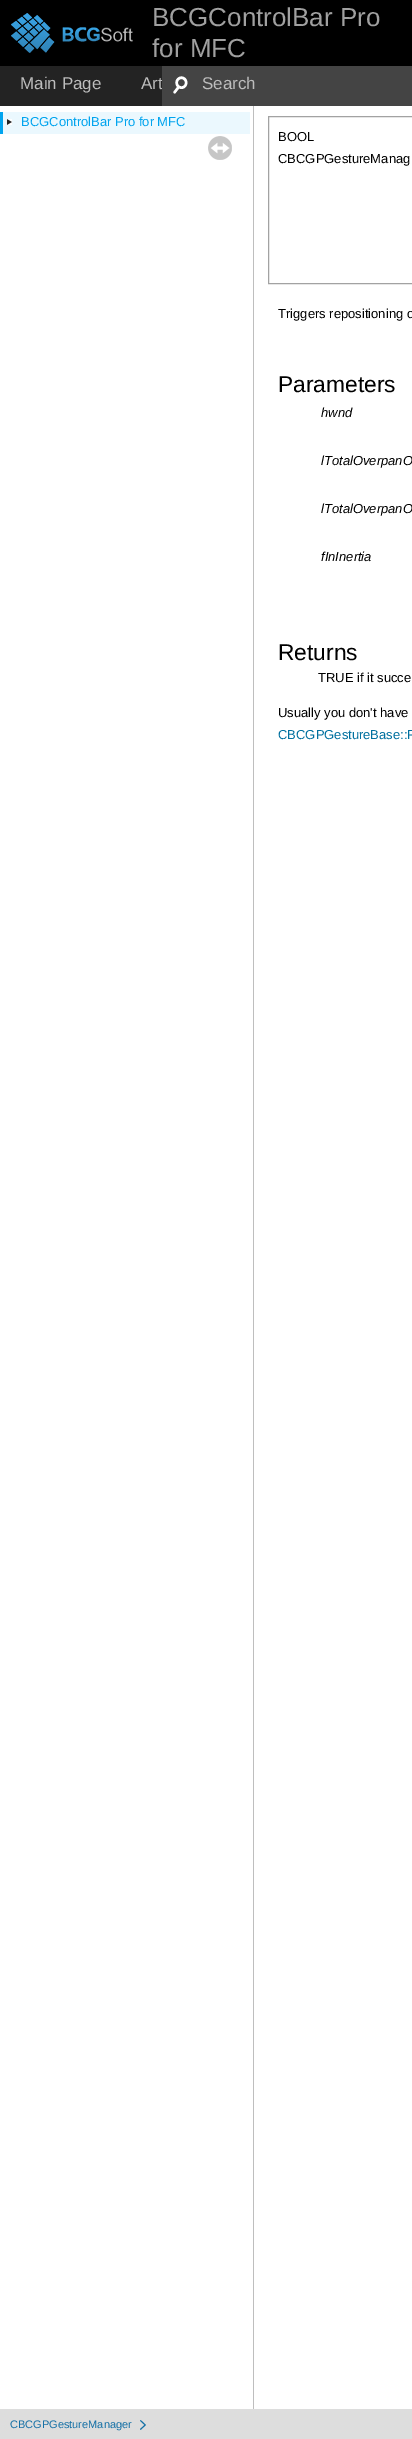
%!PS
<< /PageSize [412 2439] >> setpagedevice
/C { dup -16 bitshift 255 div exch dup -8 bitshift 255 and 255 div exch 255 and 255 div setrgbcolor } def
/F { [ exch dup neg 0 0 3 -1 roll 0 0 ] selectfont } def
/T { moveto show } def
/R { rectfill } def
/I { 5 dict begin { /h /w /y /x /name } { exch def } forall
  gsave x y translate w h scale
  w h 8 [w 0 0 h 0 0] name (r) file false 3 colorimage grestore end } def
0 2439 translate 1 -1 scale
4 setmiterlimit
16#FFFFFF C
0 0 412 2439 R
16#000000 C
0 0 412 66 R
(1.rgb) 11 13 122 40 I
/LiberationSans-Regular 26 F
16#A0A0A0 C
(BCGControlBar Pro) 152 26 T
(for MFC) 152 57 T
16#232323 C
0 66 162 40 R
/LiberationSans-Regular 17 F
16#BDBDBD C
(Main Page) 20 89 T
(Art) 141 89 T
16#444444 C
162 66 250 40 R
(2.rgb) 173 76 15 18 I
16#BDBDBD C
(Search) 202 89 T
16#EBF8FE C
3 112 247 22 R
16#00A4EF C
0 112 3 22 R
(3.rgb) 7 119 5 6 I
/LiberationSans-Regular 13 F
(BCGControlBar Pro for MFC) 21 126 T
(4.rgb) 208 136 24 24 I
16#BEBEBE C
253 106 1 2303 R
16#A2A2A2 C
268.5 116.5 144 167 rectstroke
16#000000 C
(BOOL) 278 141 T
(CBCGPGestureManag) 278 163 T
(Triggers repositioning o) 278 318 T
/LiberationSans-Regular 22.75 F
(Parameters) 278 392 T
/LiberationSans-Italic 13 F
(hwnd) 321 417 T
(lTotalOverpanO) 321 465 T
(lTotalOverpanO) 321 513 T
(fInInertia) 321 561 T
/LiberationSans-Regular 22.75 F
(Returns) 278 660 T
/LiberationSans-Regular 13 F
(TRUE if it succe) 318 682 T
(Usually you don't have) 278 717 T
16#00709F C
(CBCGPGestureBase::P) 278 739 T
16#DDDDDD C
0 2409 412 30 R
(5.rgb) 140 2420 6 10 I
/LiberationSans-Regular 11 F
16#1570A6 C
(CBCGPGestureManager) 10 2428 T
showpage
